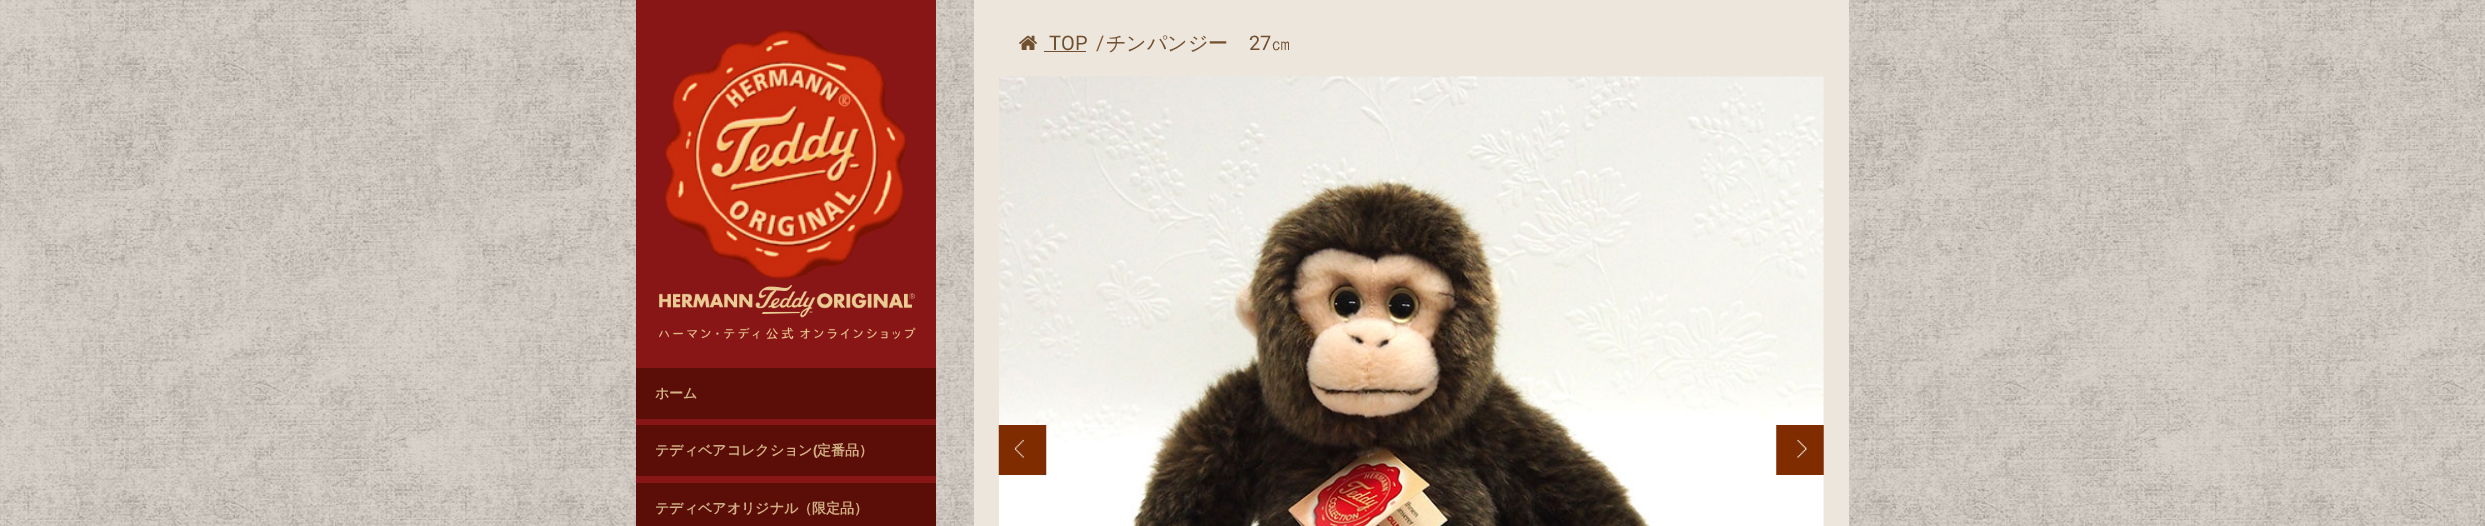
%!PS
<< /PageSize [2485 526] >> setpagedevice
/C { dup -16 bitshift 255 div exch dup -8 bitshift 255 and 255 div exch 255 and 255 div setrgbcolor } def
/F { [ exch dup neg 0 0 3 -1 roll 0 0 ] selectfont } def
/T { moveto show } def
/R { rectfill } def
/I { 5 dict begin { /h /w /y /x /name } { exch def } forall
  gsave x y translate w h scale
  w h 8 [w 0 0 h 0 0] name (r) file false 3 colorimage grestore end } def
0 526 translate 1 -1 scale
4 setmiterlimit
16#FFFFFF C
0 0 2485 526 R
(1.rgb) 0 0 2485 526 I
16#ECE6DD C
974 0 875 526 R
(2.rgb) 1019 35 18 15 I
/Roboto-Regular 20 F
16#72502F C
(TOP) 1049 50 T
1044 51 42 1 R
16#845939 C
(/) 1096 50 T
/WenQuanYiZenHei-Medium 20 F
16#72502F C
(チンパンジー) 1106 50 T
/Roboto-Regular 20 F
(27) 1249 50 T
/WenQuanYiZenHei-Medium 20 F
(㎝) 1271 50 T
(3.rgb) 999 76 825 450 I
(4.rgb) 998 425 49 50 I
(5.rgb) 1776 425 48 50 I
16#891616 C
636 0 300 483 R
(6.rgb) 665 30 242 249 I
(7.rgb) 659 285 257 55 I
16#5B0E08 C
636 368 300 51 R
/WenQuanYiZenHei-Bold 14 F
16#D2B285 C
(ホーム) 655 398 T
16#5B0E08 C
636 425 300 51 R
16#D2B285 C
(テディベアコレクション) 655 455 T
/LiberationSans-Bold 14 F
(\() 813 455 T
/WenQuanYiZenHei-Bold 14 F
(定番品）) 817 455 T
16#5B0E08 C
636 483 300 43 R
16#D2B285 C
(テディベアオリジナル（限定品）) 655 513 T
showpage
